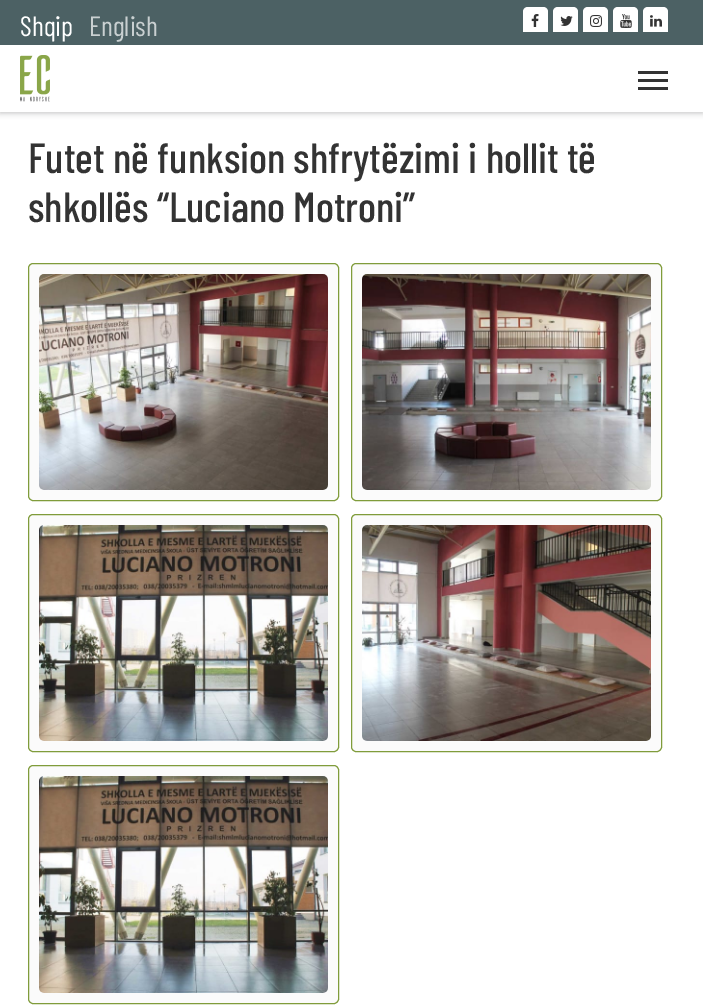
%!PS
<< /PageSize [703 1008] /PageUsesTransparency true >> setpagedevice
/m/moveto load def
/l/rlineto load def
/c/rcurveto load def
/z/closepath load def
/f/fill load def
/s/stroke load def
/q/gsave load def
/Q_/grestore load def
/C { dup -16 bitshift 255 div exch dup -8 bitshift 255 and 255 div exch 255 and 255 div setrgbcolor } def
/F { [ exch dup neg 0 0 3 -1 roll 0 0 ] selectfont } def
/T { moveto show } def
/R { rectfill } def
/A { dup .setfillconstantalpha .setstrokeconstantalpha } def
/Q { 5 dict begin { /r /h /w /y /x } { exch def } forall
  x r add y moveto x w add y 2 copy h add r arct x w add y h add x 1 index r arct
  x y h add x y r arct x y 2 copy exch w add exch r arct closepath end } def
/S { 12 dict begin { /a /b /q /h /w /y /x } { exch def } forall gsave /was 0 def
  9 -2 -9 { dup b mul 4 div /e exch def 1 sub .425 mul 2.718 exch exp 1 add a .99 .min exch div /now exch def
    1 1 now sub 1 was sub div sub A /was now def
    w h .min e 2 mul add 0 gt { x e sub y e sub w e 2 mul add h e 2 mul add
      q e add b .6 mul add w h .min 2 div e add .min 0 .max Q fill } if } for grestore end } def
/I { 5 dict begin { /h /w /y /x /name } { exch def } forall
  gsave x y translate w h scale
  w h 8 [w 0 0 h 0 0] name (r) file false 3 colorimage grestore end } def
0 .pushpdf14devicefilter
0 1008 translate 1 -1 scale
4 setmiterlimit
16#FFFFFF C
0 0 703 1008 R
16#202124 C
0 1 703 112 0 3 .28 S
16#4C6164 C
0 0 703 45 R
/BarlowCondensed-Regular 28 F
16#FFFFFF C
(Shqip) 20 36 T
16#C9D0D1 C
(English) 89 36 T
16#FFFFFF C
528 7 m 15 0 l 3 0 5 2 5 5 c 0 20 l -25 0 l 0 -20 l 0 -3 2 -5 5 -5 c z f
(1.rgb) 531 14 8 13 I
558 7 m 15 0 l 3 0 5 2 5 5 c 0 20 l -25 0 l 0 -20 l 0 -3 2 -5 5 -5 c z f
(2.rgb) 560 16 13 10 I
588 7 m 15 0 l 3 0 5 2 5 5 c 0 20 l -25 0 l 0 -20 l 0 -3 2 -5 5 -5 c z f
(3.rgb) 590 15 12 12 I
618 7 m 15 0 l 3 0 5 2 5 5 c 0 20 l -25 0 l 0 -20 l 0 -3 2 -5 5 -5 c z f
(4.rgb) 620 14 12 14 I
648 7 m 15 0 l 3 0 5 2 5 5 c 0 20 l -25 0 l 0 -20 l 0 -3 2 -5 5 -5 c z f
(5.rgb) 650 15 12 12 I
0 45 703 67 R
(6.rgb) 20 55 30 47 I
16#333333 C
638 79 30 3 R
638 71 30 3 R
638 87 30 3 R
/BarlowCondensed-Medium 42.25 F
(Futet në funksion shfrytëzimi i hollit të) 28 173 T
(shkollës “Luciano Motroni”) 28 222 T
16#FBFBFB C
28.5 263.5 310 237 4.5 Q q f Q_
16#809C3B C
s
(7.rgb) 39 274 289 216 I
16#FBFBFB C
351.5 263.5 310 237 4.5 Q q f Q_
16#809C3B C
s
(8.rgb) 362 274 289 216 I
16#FBFBFB C
28.5 514.5 310 237 4.5 Q q f Q_
16#809C3B C
s
(9.rgb) 39 525 289 216 I
16#FBFBFB C
351.5 514.5 310 237 4.5 Q q f Q_
16#809C3B C
s
(10.rgb) 362 525 289 216 I
16#FBFBFB C
28.5 765.5 310 238 4.5 Q q f Q_
16#809C3B C
s
(11.rgb) 39 776 289 217 I
.poppdf14devicefilter showpage
